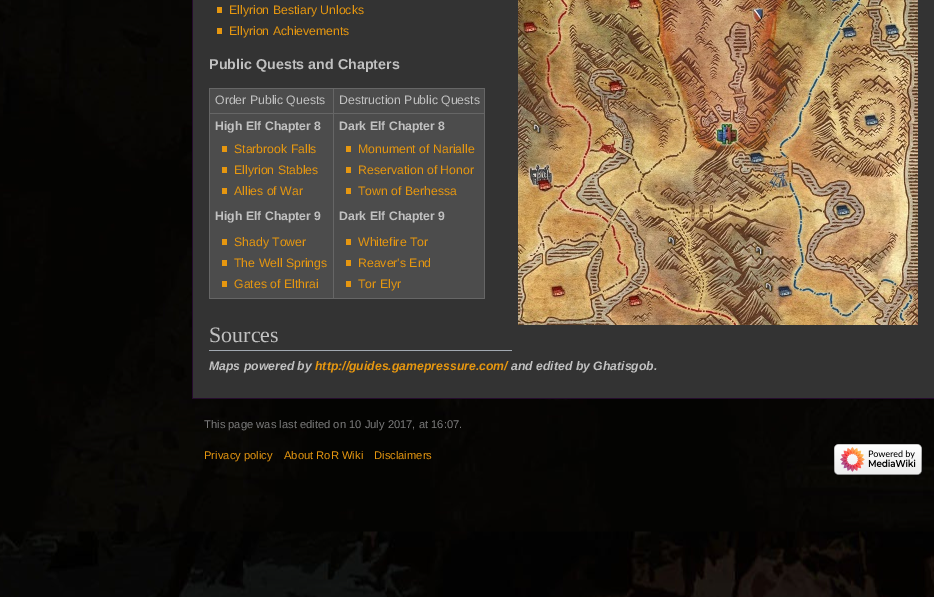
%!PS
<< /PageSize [934 597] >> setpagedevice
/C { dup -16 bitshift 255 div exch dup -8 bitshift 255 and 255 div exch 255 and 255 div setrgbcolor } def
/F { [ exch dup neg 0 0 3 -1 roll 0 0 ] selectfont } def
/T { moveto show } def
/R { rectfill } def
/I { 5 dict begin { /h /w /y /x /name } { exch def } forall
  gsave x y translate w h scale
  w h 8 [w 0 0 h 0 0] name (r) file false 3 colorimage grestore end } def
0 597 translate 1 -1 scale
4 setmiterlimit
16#FFFFFF C
0 0 934 597 R
(1.rgb) 0 0 934 597 I
16#333333 C
193 0 741 398 R
16#250B2D C
192 398 742 1 R
192 0 1 399 R
16#E69710 C
217 7 5 6 R
/LiberationSans-Regular 12.25 F
(Ellyrion Bestiary Unlocks) 229 14 T
217 28 5 6 R
(Ellyrion Achievements) 229 35 T
(2.rgb) 518 0 400 325 I
/LiberationSans-Bold 14.3 F
16#C1C1C1 C
(Public Quests and Chapters) 209 69 T
16#4C4C4C C
210 89 274 209 R
16#666666 C
209 88 276 1 R
484 88 1 211 R
209 298 276 1 R
209 88 1 211 R
/LiberationSans-Regular 12.25 F
16#C1C1C1 C
(Order Public Quests) 215 104 T
16#666666 C
333 113 152 1 R
333 113 1 186 R
209 113 125 1 R
333 88 1 26 R
16#C1C1C1 C
(Destruction Public Quests) 339 104 T
/LiberationSans-Bold 12.25 F
(High Elf Chapter 8) 215 130 T
16#E69710 C
222 146 5 6 R
/LiberationSans-Regular 12.25 F
(Starbrook Falls) 234 153 T
222 167 5 6 R
(Ellyrion Stables) 234 174 T
222 188 5 6 R
(Allies of War) 234 195 T
/LiberationSans-Bold 12.25 F
16#C1C1C1 C
(High Elf Chapter 9) 215 220 T
16#E69710 C
222 239 5 6 R
/LiberationSans-Regular 12.25 F
(Shady Tower) 234 246 T
222 260 5 6 R
(The Well Springs) 234 267 T
222 281 5 6 R
(Gates of Elthrai) 234 288 T
/LiberationSans-Bold 12.25 F
16#C1C1C1 C
(Dark Elf Chapter 8) 339 130 T
16#E69710 C
346 146 5 6 R
/LiberationSans-Regular 12.25 F
(Monument of Narialle) 358 153 T
346 167 5 6 R
(Reservation of Honor) 358 174 T
346 188 5 6 R
(Town of Berhessa) 358 195 T
/LiberationSans-Bold 12.25 F
16#C1C1C1 C
(Dark Elf Chapter 9) 339 220 T
16#E69710 C
346 239 5 6 R
/LiberationSans-Regular 12.25 F
(Whitefire Tor) 358 246 T
346 260 5 6 R
(Reaver's End) 358 267 T
346 281 5 6 R
(Tor Elyr) 358 288 T
16#A2A9B1 C
209 350 303 1 R
/LiberationSerif-Regular 22 F
16#C1C1C1 C
(Sources) 209 342 T
/LiberationSans-BoldItalic 12.25 F
(Maps powered by) 209 370 T
16#E69710 C
(http://guides.gamepressure.com/) 315 370 T
16#C1C1C1 C
(and edited by Ghatisgob.) 511 370 T
/LiberationSans-Regular 11.2 F
16#7C7C7C C
(This page was last edited on 10 July 2017, at 16:07.) 204 428 T
16#E69710 C
(Privacy policy) 204 459 T
(About RoR Wiki) 284 459 T
(Disclaimers) 374 459 T
(3.rgb) 834 444 88 31 I
showpage
